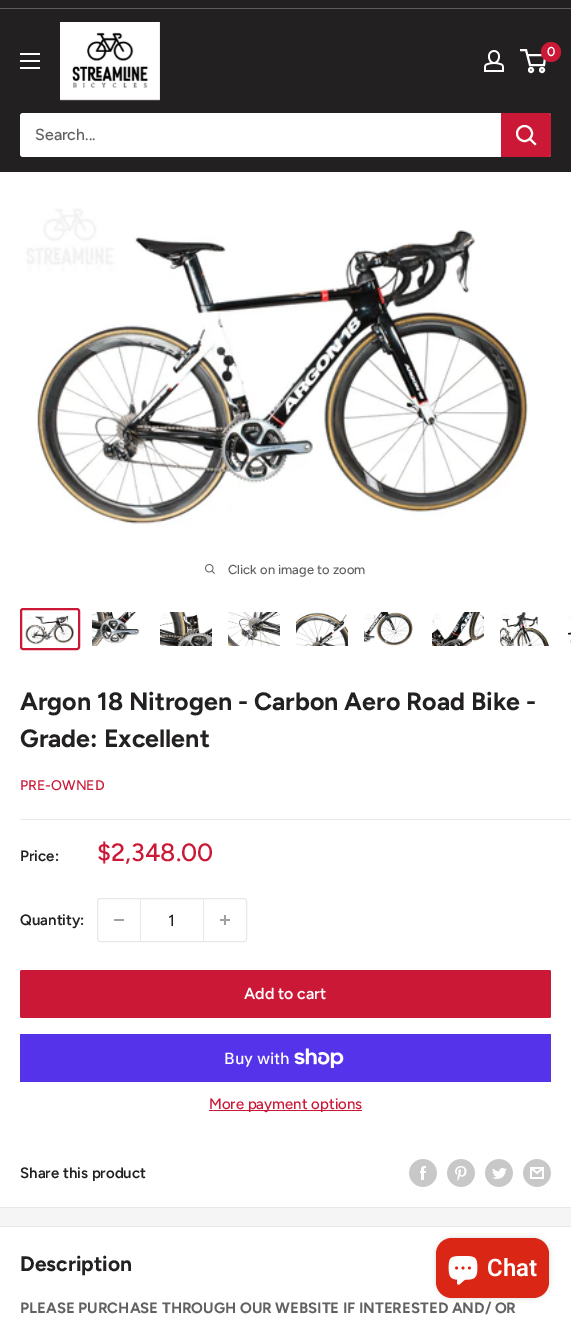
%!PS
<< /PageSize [571 1319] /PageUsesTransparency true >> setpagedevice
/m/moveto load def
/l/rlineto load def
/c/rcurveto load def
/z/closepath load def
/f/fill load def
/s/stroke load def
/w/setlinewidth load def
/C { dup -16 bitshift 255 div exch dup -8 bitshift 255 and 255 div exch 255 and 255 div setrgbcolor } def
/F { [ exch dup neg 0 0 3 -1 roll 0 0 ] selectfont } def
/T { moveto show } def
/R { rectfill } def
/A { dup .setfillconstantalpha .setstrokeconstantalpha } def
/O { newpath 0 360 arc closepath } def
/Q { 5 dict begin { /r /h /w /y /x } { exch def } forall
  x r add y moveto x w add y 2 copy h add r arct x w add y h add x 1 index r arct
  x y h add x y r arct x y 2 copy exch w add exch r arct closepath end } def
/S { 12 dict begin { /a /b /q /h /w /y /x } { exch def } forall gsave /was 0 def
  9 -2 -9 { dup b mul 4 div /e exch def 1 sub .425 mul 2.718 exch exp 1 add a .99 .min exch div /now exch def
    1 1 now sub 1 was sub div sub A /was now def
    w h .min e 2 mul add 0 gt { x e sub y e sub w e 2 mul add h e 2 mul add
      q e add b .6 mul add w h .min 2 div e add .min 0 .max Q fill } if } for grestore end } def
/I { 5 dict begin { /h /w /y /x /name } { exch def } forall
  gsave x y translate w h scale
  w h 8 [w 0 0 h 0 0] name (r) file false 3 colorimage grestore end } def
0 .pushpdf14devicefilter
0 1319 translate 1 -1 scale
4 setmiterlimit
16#F5F5F5 C
0 0 571 1319 R
16#222021 C
0 0 571 8 R
16#5D5C5D C
0 8 571 1 R
16#222021 C
0 9 571 163 R
(1.rgb) 60 22 100 79 I
(2.rgb) 484 50 20 22 I
16#FFFFFF C
2 w
531 70 2 O s
542 70 2 O s
527.5 55 m 18 0 l -1.5 10 l -14 0 l -4 -15 l -6 0 l s
16#CB1836 C
551 52 10 O f
/Figtree-SemiBold 13 F
16#FFFFFF C
(0) 547 56 T
(3.rgb) 20 53 20 16 I
20 113 531 44 3 Q f
/Figtree-Medium 16 F
16#616161 C
(Search...) 35 140 T
16#CB1836 C
501 113 m 47 0 l 1.5 0 3 1.5 3 3 c 0 38 l 0 1.5 -1.5 3 -3 3 c -47 0 l z f
16#FFFFFF C
2 setlinecap
535 144 m -5 -5 l s
0 setlinecap
524.5 133.5 7.5 O s
0 172 571 1035 R
(4.rgb) 26 208 504 318 I
(5.rgb) 205 564 10 10 I
/Figtree-Medium 13 F
16#616161 C
(Click on image to zoom) 228 574 T
16#CB1836 C
21 609 58 40 2 Q s
(6.rgb) 25 614 49 31 I
(7.rgb) 92 612 48 34 I
(8.rgb) 160 612 52 34 I
(9.rgb) 228 612 52 34 I
(10.rgb) 296 612 52 34 I
(11.rgb) 364 612 49 34 I
(12.rgb) 432 612 52 34 I
(13.rgb) 500 612 49 34 I
(14.rgb) 568 617 3 26 I
16#E8E8E8 C
0 1207 571 1 R
/Figtree-Bold 25 F
16#222021 C
(Argon 18 Nitrogen - Carbon Aero Road Bike -) 20 710 T
(Grade: Excellent) 20 747 T
/Figtree-Medium 14 F
16#CB1836 C
(PRE-OWNED) 20 790 T
16#E8E8E8 C
20 819 551 1 R
/Figtree-SemiBold 15 F
16#222021 C
(Price:) 20 861 T
/Figtree-Medium 25 F
16#CB1836 C
($2,348.00) 97 861 T
/Figtree-SemiBold 15 F
16#222021 C
(Quantity:) 20 925 T
16#E8E8E8 C
1 w
97.5 898.5 149 43 2.5 Q s
16#A0A0A0 C
114 919 10 2 R
16#F6F6F6 C
141 899 62 1 R
16#E8E8E8 C
203 899 1 42 R
140 899 1 42 R
/Figtree-Medium 16 F
16#222021 C
(1) 168 926 T
(15.rgb) 220 915 10 10 I
16#CB1836 C
20 970 531 48 2 Q f
/Figtree-SemiBold 16 F
16#FFFFFF C
(Add to cart) 244 999 T
16#5433EB C
20 1034 531 48 R
/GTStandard-Medium 16 F
16#FFFFFF C
(Buy with) 224 1064 T
(16.rgb) 294 1048 50 20 I
16#CB1836 C
209 1110 153 1 R
/Figtree-Medium 15 F
(More payment options) 209 1109 T
/Figtree-SemiBold 15 F
16#222021 C
(Share this product) 20 1178 T
(17.rgb) 409 1159 28 28 I
(18.rgb) 447 1159 28 28 I
(19.rgb) 485 1159 28 28 I
(20.rgb) 523 1159 28 28 I
16#FFFFFF C
0 1227 571 92 R
16#E8E8E8 C
0 1226 571 1 R
/Figtree-Bold 21 F
16#222021 C
(Description) 20 1271 T
/Figtree-Bold 15 F
16#616161 C
(PLEASE PURCHASE THROUGH OUR WEBSITE IF INTERESTED AND/ OR) 20 1313 T
16#000000 C
436 1238 113 60 16 2.5 .15 S
16#DA2614 C
436 1238 113 60 16 Q f
(21.rgb) 448 1256 30 29 I
/Roboto-SemiBold 24 F
16#FFFFFF C
(Chat) 487 1276 T
.poppdf14devicefilter showpage
